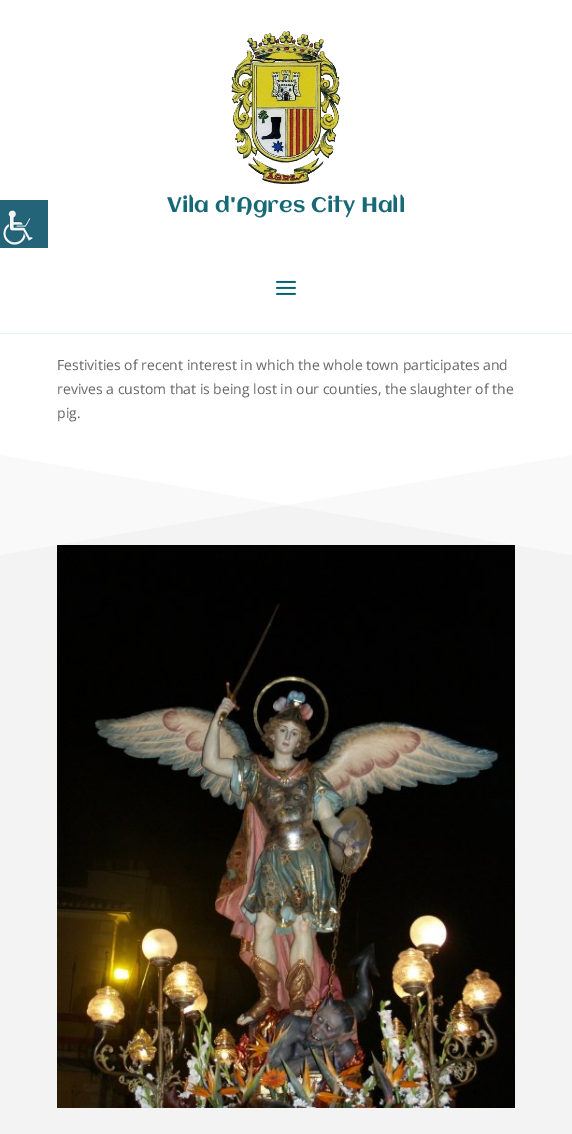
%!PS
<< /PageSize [572 1134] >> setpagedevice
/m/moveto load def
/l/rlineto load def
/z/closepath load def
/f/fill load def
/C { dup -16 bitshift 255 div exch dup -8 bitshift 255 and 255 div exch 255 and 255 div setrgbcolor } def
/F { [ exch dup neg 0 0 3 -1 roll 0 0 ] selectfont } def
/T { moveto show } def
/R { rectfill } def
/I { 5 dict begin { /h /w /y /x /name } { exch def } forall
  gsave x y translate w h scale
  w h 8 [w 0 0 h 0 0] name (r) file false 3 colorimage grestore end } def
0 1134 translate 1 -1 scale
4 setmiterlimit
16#FFFFFF C
0 0 572 1134 R
(1.rgb) 0 200 48 48 I
16#EBF3F2 C
0 333 572 1 R
(2.rgb) 231 31 110 153 I
/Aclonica-Regular 21 F
16#176976 C
(Vila d'Agres City Hall) 167 212 T
(3.rgb) 276 280 20 15 I
/OpenSans-Regular 14 F
16#666666 C
(Festivities of recent interest in which the whole town participates and) 57 370 T
(revives a custom that is being lost in our counties, the slaughter of the) 57 394 T
(pig.) 57 418 T
16#F3F3F3 C
0 455 572 679 R
16#F9F9F9 C
572 455 m -286 50 l -286 -50 l 0 100 l 286 -50 l 286 50 l z f
16#FFFFFF C
572 455 m -572 0 l 286 50 l z f
(4.rgb) 57 545 458 563 I
showpage
